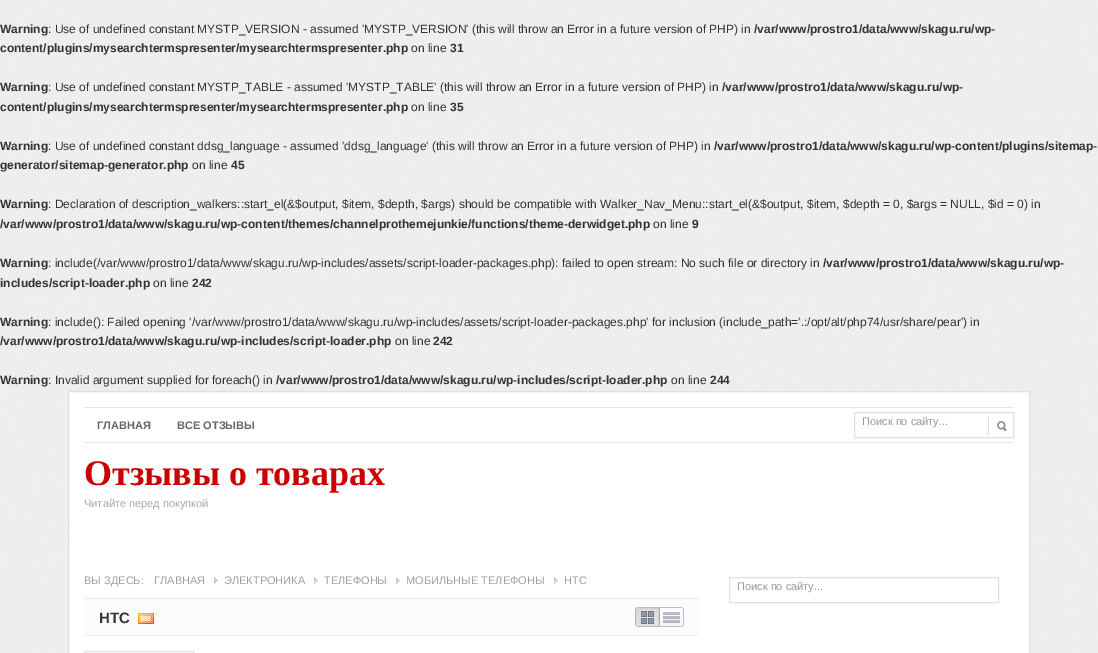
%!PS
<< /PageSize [1098 653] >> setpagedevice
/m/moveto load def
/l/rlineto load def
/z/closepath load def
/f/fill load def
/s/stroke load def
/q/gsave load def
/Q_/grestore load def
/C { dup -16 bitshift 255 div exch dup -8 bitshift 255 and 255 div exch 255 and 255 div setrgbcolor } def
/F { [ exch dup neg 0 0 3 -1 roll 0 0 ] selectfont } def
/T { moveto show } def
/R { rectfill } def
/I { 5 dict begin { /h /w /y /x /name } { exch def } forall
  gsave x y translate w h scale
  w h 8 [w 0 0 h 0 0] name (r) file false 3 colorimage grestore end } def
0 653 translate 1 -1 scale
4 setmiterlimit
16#FFFFFF C
0 0 1098 653 R
(1.rgb) 0 0 1098 653 I
/LiberationSans-Bold 12 F
16#333333 C
(Warning) 0 33 T
/LiberationSans-Regular 12 F
(: Use of undefined constant MYSTP_VERSION - assumed 'MYSTP_VERSION' \(this will throw an Error in a future version of PHP\) in) 48 33 T
/LiberationSans-Bold 12 F
(/var/www/prostro1/data/www/skagu.ru/wp-) 754 33 T
(content/plugins/mysearchtermspresenter/mysearchtermspresenter.php) 0 52 T
/LiberationSans-Regular 12 F
(on line) 411 52 T
/LiberationSans-Bold 12 F
(31) 450 52 T
(Warning) 0 91 T
/LiberationSans-Regular 12 F
(: Use of undefined constant MYSTP_TABLE - assumed 'MYSTP_TABLE' \(this will throw an Error in a future version of PHP\) in) 48 91 T
/LiberationSans-Bold 12 F
(/var/www/prostro1/data/www/skagu.ru/wp-) 722 91 T
(content/plugins/mysearchtermspresenter/mysearchtermspresenter.php) 0 111 T
/LiberationSans-Regular 12 F
(on line) 411 111 T
/LiberationSans-Bold 12 F
(35) 450 111 T
(Warning) 0 150 T
/LiberationSans-Regular 12 F
(: Use of undefined constant ddsg_language - assumed 'ddsg_language' \(this will throw an Error in a future version of PHP\) in) 48 150 T
/LiberationSans-Bold 12 F
(/var/www/prostro1/data/www/skagu.ru/wp-content/plugins/sitemap-) 714 150 T
(generator/sitemap-generator.php) 0 169 T
/LiberationSans-Regular 12 F
(on line) 192 169 T
/LiberationSans-Bold 12 F
(45) 231 169 T
(Warning) 0 208 T
/LiberationSans-Regular 12 F
(: Declaration of description_walkers::start_el\(&$output, $item, $depth, $args\) should be compatible with Walker_Nav_Menu::start_el\(&$output, $item, $depth = 0, $args = NULL, $id = 0\) in) 48 208 T
/LiberationSans-Bold 12 F
(/var/www/prostro1/data/www/skagu.ru/wp-content/themes/channelprothemejunkie/functions/theme-derwidget.php) 0 228 T
/LiberationSans-Regular 12 F
(on line) 653 228 T
/LiberationSans-Bold 12 F
(9) 692 228 T
(Warning) 0 267 T
/LiberationSans-Regular 12 F
(: include\(/var/www/prostro1/data/www/skagu.ru/wp-includes/assets/script-loader-packages.php\): failed to open stream: No such file or directory in) 48 267 T
/LiberationSans-Bold 12 F
(/var/www/prostro1/data/www/skagu.ru/wp-) 823 267 T
(includes/script-loader.php) 0 287 T
/LiberationSans-Regular 12 F
(on line) 153 287 T
/LiberationSans-Bold 12 F
(242) 192 287 T
(Warning) 0 326 T
/LiberationSans-Regular 12 F
(: include\(\): Failed opening '/var/www/prostro1/data/www/skagu.ru/wp-includes/assets/script-loader-packages.php' for inclusion \(include_path='.:/opt/alt/php74/usr/share/pear'\) in) 48 326 T
/LiberationSans-Bold 12 F
(/var/www/prostro1/data/www/skagu.ru/wp-includes/script-loader.php) 0 345 T
/LiberationSans-Regular 12 F
(on line) 395 345 T
/LiberationSans-Bold 12 F
(242) 433 345 T
(Warning) 0 384 T
/LiberationSans-Regular 12 F
(: Invalid argument supplied for foreach\(\) in) 48 384 T
/LiberationSans-Bold 12 F
(/var/www/prostro1/data/www/skagu.ru/wp-includes/script-loader.php) 276 384 T
/LiberationSans-Regular 12 F
(on line) 671 384 T
/LiberationSans-Bold 12 F
(244) 710 384 T
16#FFFFFF C
68.5 391.5 m 961 0 l 0 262 l -961 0 l z q f Q_
16#DFDFDF C
s
16#E6E6E6 C
84 407 930 1 R
84 442 930 1 R
/LiberationSans-Bold 11 F
16#666666 C
(ГЛАВНАЯ) 97 429 T
(ВСЕ ОТЗЫВЫ) 177 429 T
16#E0E0E0 C
854.5 412.5 159 25 rectstroke
/LiberationSans-Regular 11 F
16#999999 C
(Поиск по сайту...) 862 425 T
(2.rgb) 988 417 19 18 I
/LiberationSerif-Bold 36 F
16#CC0000 C
(Отзывы о товарах) 84 485 T
/LiberationSans-Regular 11 F
16#AAAAAA C
(Читайте перед покупкой) 84 507 T
16#ECEDE8 C
84 598 615 1 R
16#9F9F9F C
(ВЫ ЗДЕСЬ:) 84 584 T
(ГЛАВНАЯ) 154 584 T
(3.rgb) 214 577 4 7 I
(ЭЛЕКТРОНИКА) 224 584 T
(3.rgb) 314 577 4 7 I
(ТЕЛЕФОНЫ) 324 584 T
(3.rgb) 396 577 4 7 I
(МОБИЛЬНЫЕ ТЕЛЕФОНЫ) 406 584 T
(3.rgb) 554 577 4 7 I
(HTC) 564 584 T
16#FBFBFB C
84 599 615 36 R
16#ECEDE8 C
84 635 615 1 R
/LiberationSans-Bold 15 F
16#333333 C
(HTC) 99 623 T
(4.rgb) 138 613 16 11 I
(5.rgb) 635 607 49 20 I
16#E0E0E0 C
84.5 651.5 109 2 rectstroke
729.5 577.5 269 25 rectstroke
/LiberationSans-Regular 11 F
16#999999 C
(Поиск по сайту...) 737 590 T
showpage
